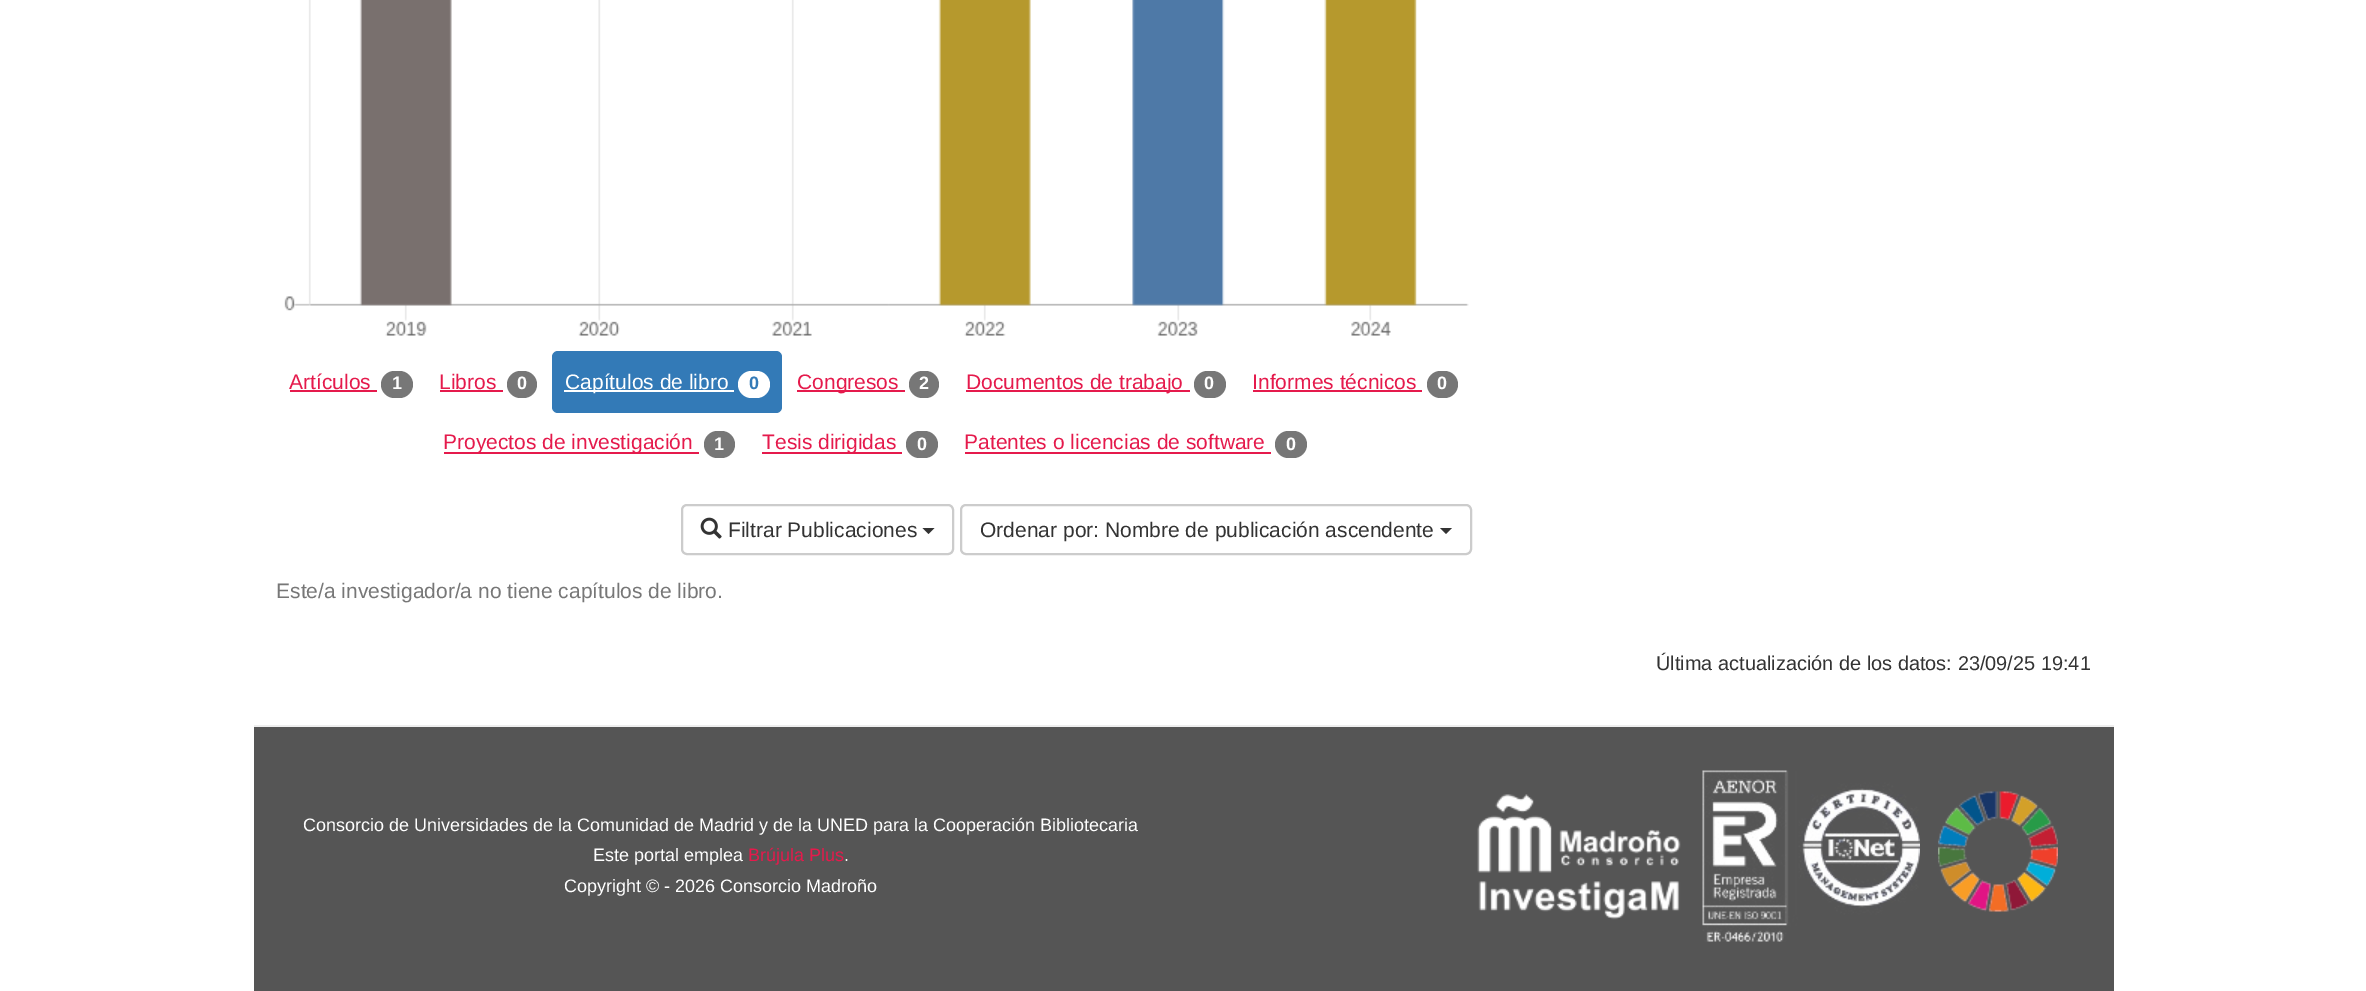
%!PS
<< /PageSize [2366 991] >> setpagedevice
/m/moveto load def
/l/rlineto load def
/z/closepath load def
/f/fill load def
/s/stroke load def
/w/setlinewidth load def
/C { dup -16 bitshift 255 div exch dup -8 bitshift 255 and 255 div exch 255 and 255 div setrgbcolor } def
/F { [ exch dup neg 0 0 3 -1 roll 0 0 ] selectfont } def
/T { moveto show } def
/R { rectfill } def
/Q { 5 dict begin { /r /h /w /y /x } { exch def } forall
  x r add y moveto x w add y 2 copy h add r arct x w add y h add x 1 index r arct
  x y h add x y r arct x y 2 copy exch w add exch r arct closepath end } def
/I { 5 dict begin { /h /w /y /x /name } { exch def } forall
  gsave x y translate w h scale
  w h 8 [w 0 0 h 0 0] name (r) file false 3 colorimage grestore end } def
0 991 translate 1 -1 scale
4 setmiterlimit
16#FFFFFF C
0 0 2366 991 R
(1.rgb) 284 0 1185 336 I
/LiberationSans-Regular 21 F
16#E51A4C C
(Artículos) 289 389 T
290 390 87 2 R
16#777777 C
381 371 32 27 13.5 Q f
/LiberationSans-Bold 18 F
16#FFFFFF C
(1) 392 389 T
/LiberationSans-Regular 21 F
16#E51A4C C
(Libros) 439 389 T
440 390 63 2 R
16#777777 C
507 371 30 27 13.5 Q f
/LiberationSans-Bold 18 F
16#FFFFFF C
(0) 517 389 T
16#337AB7 C
552 351 230 62 6 Q f
16#FFFFFF C
564 390 170 2 R
/LiberationSans-Regular 21 F
(Capítulos de libro) 565 389 T
738 371 32 27 13.5 Q f
/LiberationSans-Bold 18 F
16#337AB7 C
(0) 749 389 T
16#E51A4C C
797 390 108 2 R
/LiberationSans-Regular 21 F
(Congresos) 797 389 T
16#777777 C
909 371 30 27 13.5 Q f
/LiberationSans-Bold 18 F
16#FFFFFF C
(2) 919 389 T
16#E51A4C C
966 390 224 2 R
/LiberationSans-Regular 21 F
(Documentos de trabajo) 966 389 T
16#777777 C
1194 371 32 27 13.5 Q f
/LiberationSans-Bold 18 F
16#FFFFFF C
(0) 1204 389 T
/LiberationSans-Regular 21 F
16#E51A4C C
(Informes técnicos) 1252 389 T
1253 390 169 2 R
16#777777 C
1427 371 31 27 13.5 Q f
/LiberationSans-Bold 18 F
16#FFFFFF C
(0) 1437 389 T
16#E51A4C C
444 452 255 2 R
/LiberationSans-Regular 21 F
(Proyectos de investigación) 443 449 T
16#777777 C
704 431 31 27 13.5 Q f
/LiberationSans-Bold 18 F
16#FFFFFF C
(1) 714 450 T
16#E51A4C C
762 452 140 2 R
/LiberationSans-Regular 21 F
(Tesis dirigidas) 762 449 T
16#777777 C
906 431 32 27 13.5 Q f
/LiberationSans-Bold 18 F
16#FFFFFF C
(0) 917 450 T
/LiberationSans-Regular 21 F
16#E51A4C C
(Patentes o licencias de software) 964 449 T
965 452 306 2 R
16#777777 C
1275 431 32 27 13.5 Q f
/LiberationSans-Bold 18 F
16#FFFFFF C
(0) 1286 450 T
16#CCCCCC C
2 w
682 505 271 49 5 Q s
(2.rgb) 700 517 22 22 I
/LiberationSans-Regular 21 F
16#333333 C
(Filtrar Publicaciones) 728 537 T
922.5 528 m 12 0 l -6 6 l z f
16#CCCCCC C
961 505 510 49 5 Q s
16#333333 C
(Ordenar por: Nombre de publicación ascendente) 980 537 T
1440 528 m 12 0 l -6 6 l z f
16#777777 C
(Este/a investigador/a no tiene capítulos de libro.) 276 598 T
/LiberationSans-Regular 19.95 F
16#333333 C
(Última actualización de los datos: 23/09/25 19:41) 1656 670 T
16#555555 C
254 727 1860 264 R
16#EEEEEE C
254 725 1860 2 R
/LiberationSans-Regular 18 F
16#FFFFFF C
(Consorcio de Universidades de la Comunidad de Madrid y de la UNED para la Cooperación Bibliotecaria) 303 831 T
(Este portal emplea) 593 861 T
16#E51A4C C
(Brújula Plus) 748 861 T
16#FFFFFF C
(.) 844 861 T
(Copyright © - 2026 Consorcio Madroño) 564 892 T
(3.rgb) 1477 794 204 126 I
(4.rgb) 1702 770 218 172 I
(5.rgb) 1938 791 120 121 I
showpage
